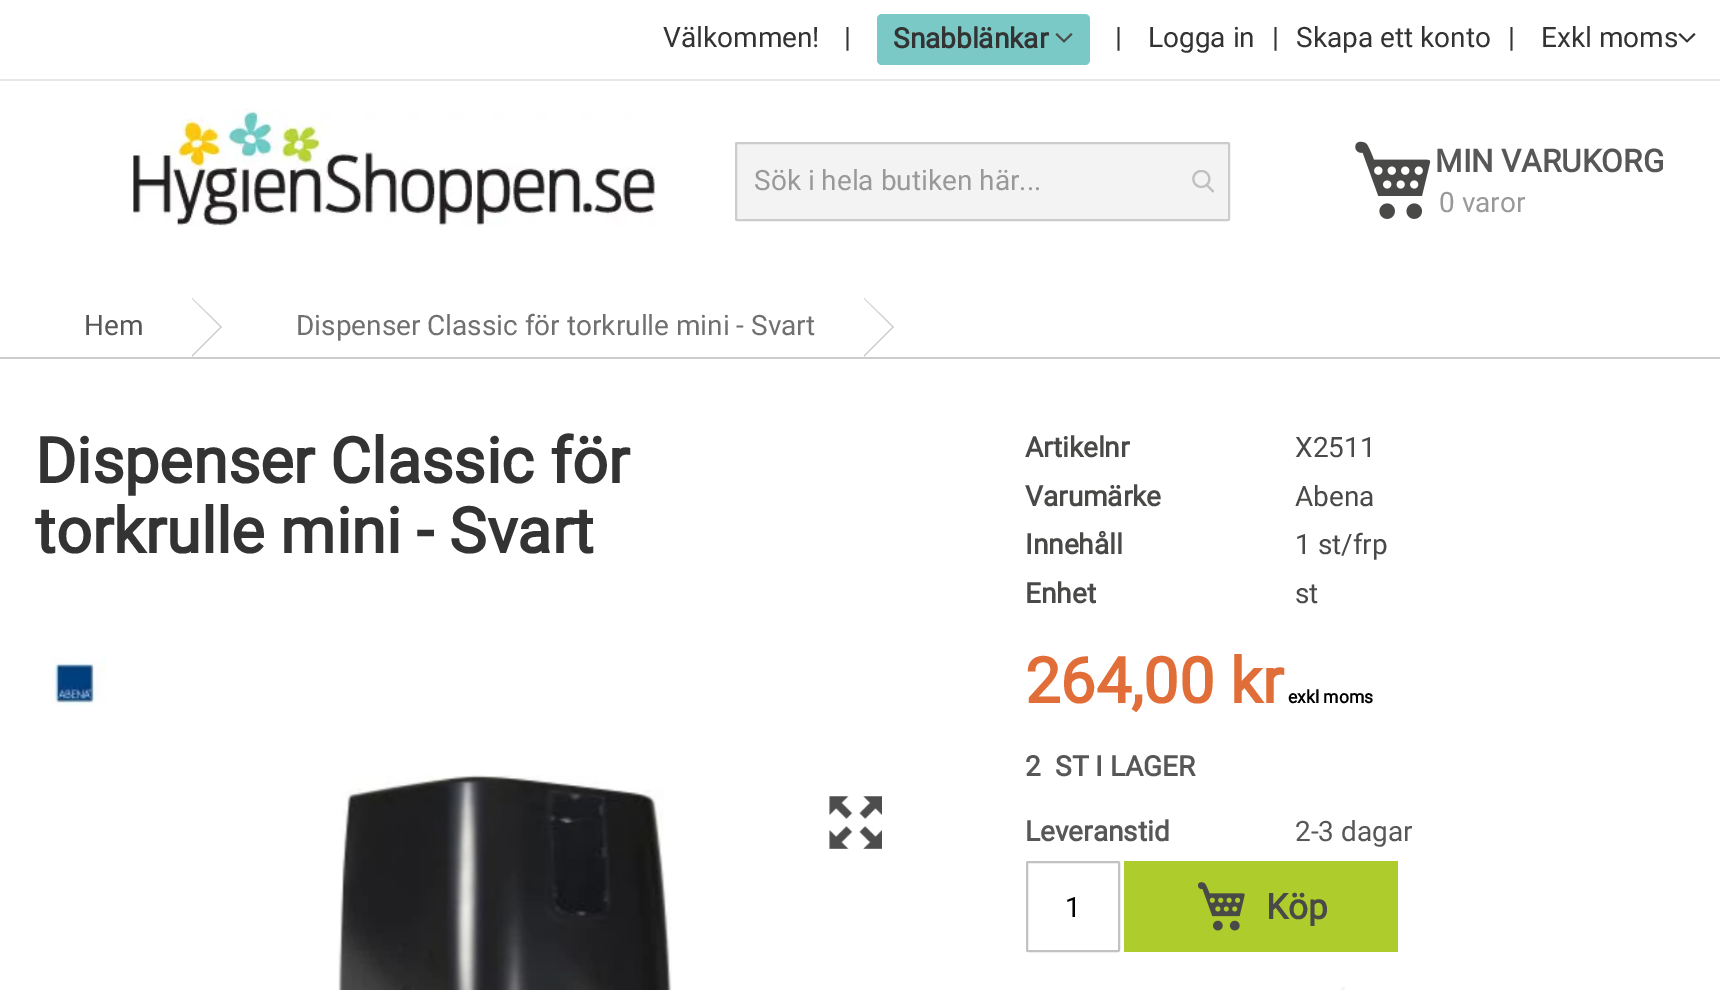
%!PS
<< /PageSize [1720 990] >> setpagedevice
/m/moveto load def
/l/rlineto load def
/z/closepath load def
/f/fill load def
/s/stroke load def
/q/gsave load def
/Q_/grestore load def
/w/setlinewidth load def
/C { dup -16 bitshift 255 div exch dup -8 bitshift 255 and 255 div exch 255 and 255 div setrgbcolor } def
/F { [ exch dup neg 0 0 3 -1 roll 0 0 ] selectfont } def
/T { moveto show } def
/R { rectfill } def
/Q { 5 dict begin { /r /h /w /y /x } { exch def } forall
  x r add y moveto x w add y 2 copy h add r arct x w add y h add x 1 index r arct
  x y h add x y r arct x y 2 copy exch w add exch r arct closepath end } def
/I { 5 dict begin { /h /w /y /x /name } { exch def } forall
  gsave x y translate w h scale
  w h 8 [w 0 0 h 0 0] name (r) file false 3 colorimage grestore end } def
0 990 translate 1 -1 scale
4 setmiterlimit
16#FFFFFF C
0 0 1720 990 R
16#E8E8E8 C
0 79 1720 2 R
/Roboto-Regular 28 F
16#333333 C
(Välkommen!) 663 47 T
(|) 844 47 T
16#7BC9C7 C
877 14 213 51 5 Q f
/Roboto-Bold 28 F
16#333333 C
(Snabblänkar) 893 48 T
16#494948 C
1064 40 m -7 -7 l -1.5 1.5 l 8.5 8 l 8.5 -8 l -1.5 -1.5 l z f
/Roboto-Regular 28 F
16#333333 C
(|) 1115 47 T
(Logga in) 1148 47 T
(|) 1272 47 T
(Skapa ett konto) 1296 47 T
(|) 1508 47 T
(Exkl moms) 1541 47 T
1687 40 m -7 -7 l -1.5 1.5 l 8.5 8 l 8.5 -8 l -1.5 -1.5 l z f
(1.rgb) 133 109 522 118 I
16#F3F3F3 C
736 143 493 77 1 Q q f Q_
16#CCCCCC C
2 w
s
16#999999 C
(Sök i hela butiken här...) 754 190 T
(2.rgb) 1192 170 22 23 I
(3.rgb) 1355 141 76 78 I
/Roboto-Bold 31.5 F
16#575757 C
(MIN VARUKORG) 1435 172 T
/Roboto-Regular 28 F
16#999999 C
(0 varor) 1439 212 T
16#CCCCCC C
0 357 1720 2 R
192 357 m 0 -59 l 30 29 l z f
16#575757 C
(Hem) 84 335 T
16#FFFFFF C
192 355 m 0 -56 l 28 28 l z f
16#CCCCCC C
864 357 m 0 -59 l 30 29 l z f
16#707070 C
(Dispenser Classic för torkrulle mini - Svart) 296 335 T
16#FFFFFF C
864 355 m 0 -56 l 28 28 l z f
/Roboto-Bold 63 F
16#333333 C
(Dispenser Classic för) 35 483 T
(torkrulle mini - Svart) 35 553 T
(4.rgb) 52 658 54 48 I
/Roboto-Bold 28 F
16#494948 C
(Artikelnr) 1025 457 T
/Roboto-Regular 28 F
(X2511) 1295 457 T
/Roboto-Bold 28 F
(Varumärke) 1025 506 T
/Roboto-Regular 28 F
(Abena) 1295 506 T
/Roboto-Bold 28 F
(Innehåll) 1025 554 T
/Roboto-Regular 28 F
(1 st/frp) 1295 554 T
/Roboto-Bold 28 F
(Enhet) 1025 603 T
/Roboto-Regular 28 F
(st) 1295 603 T
/Roboto-Bold 63 F
16#E16E38 C
(264,00 kr) 1025 703 T
/Roboto-Bold 17.5 F
16#000000 C
(exkl moms) 1288 703 T
/Roboto-Bold 28 F
16#575757 C
(2) 1025 776 T
(ST I LAGER) 1055 776 T
(Leveranstid) 1025 841 T
/Roboto-Regular 28 F
(2-3 dagar) 1295 841 T
16#C2C2C2 C
1027 862 92 89 1 Q s
16#000000 C
(1) 1065 917 T
16#AECC2C C
1124 861 274 91 R
(5.rgb) 1197 882 48 49 I
/Roboto-Bold 35 F
16#494948 C
(Köp) 1266 919 T
(6.rgb) 338 775 334 215 I
(7.rgb) 829 796 53 53 I
16#F5F5F5 C
1341 987 4 3 R
showpage
